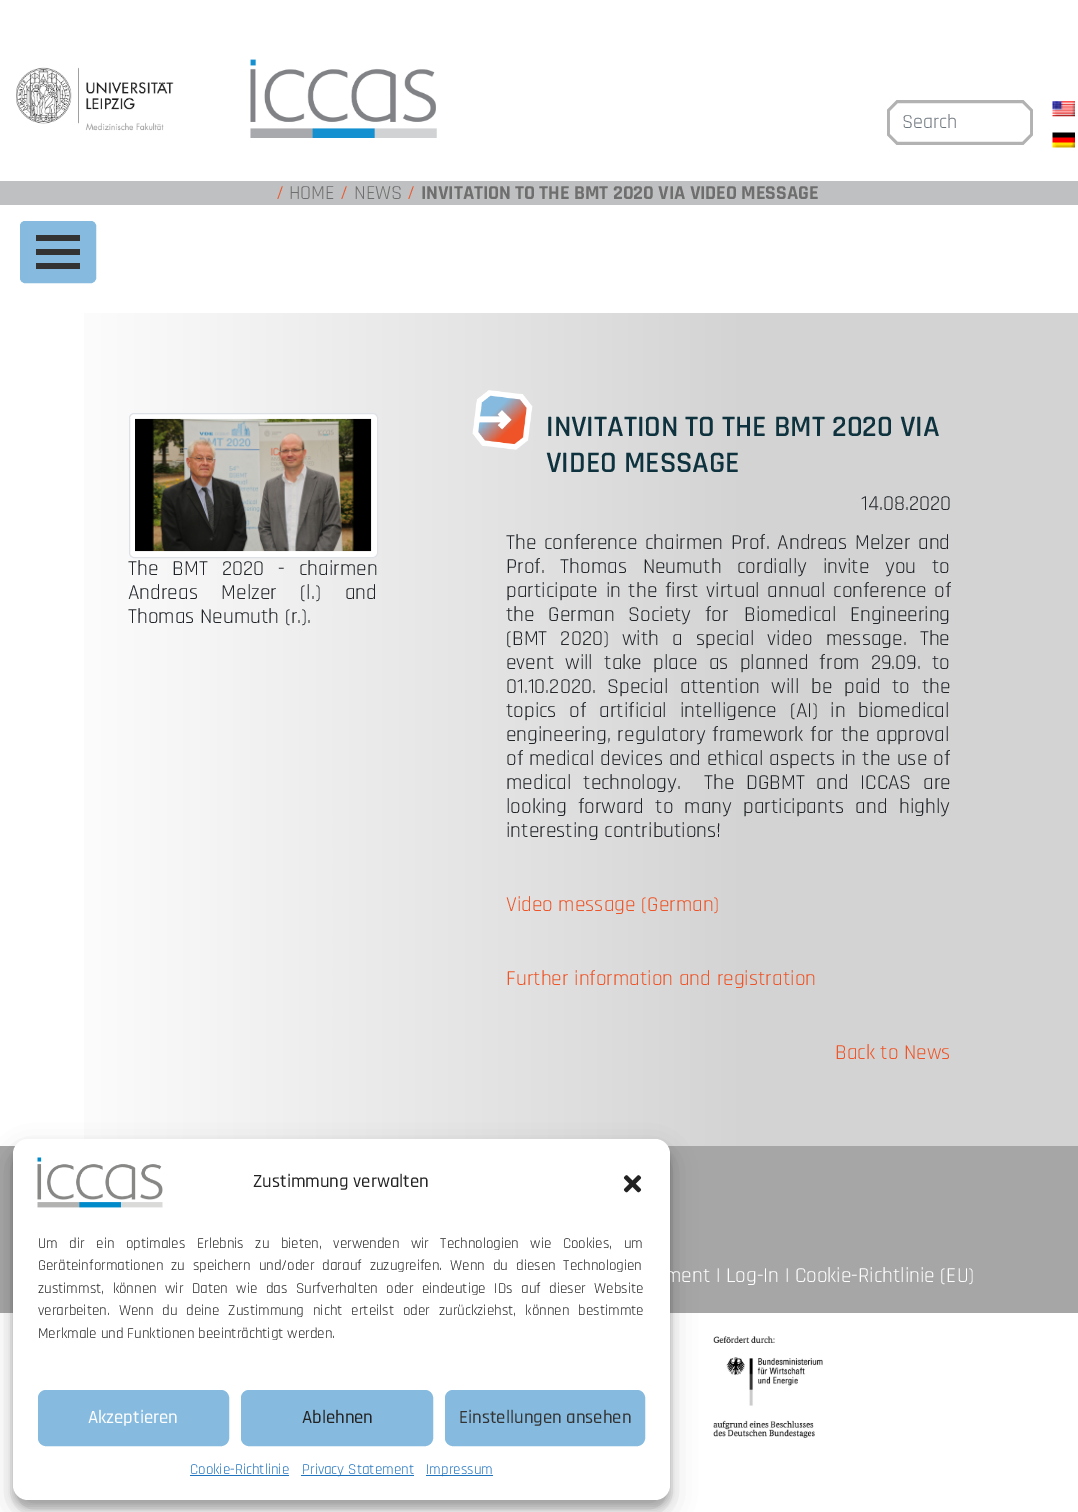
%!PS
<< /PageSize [1078 1512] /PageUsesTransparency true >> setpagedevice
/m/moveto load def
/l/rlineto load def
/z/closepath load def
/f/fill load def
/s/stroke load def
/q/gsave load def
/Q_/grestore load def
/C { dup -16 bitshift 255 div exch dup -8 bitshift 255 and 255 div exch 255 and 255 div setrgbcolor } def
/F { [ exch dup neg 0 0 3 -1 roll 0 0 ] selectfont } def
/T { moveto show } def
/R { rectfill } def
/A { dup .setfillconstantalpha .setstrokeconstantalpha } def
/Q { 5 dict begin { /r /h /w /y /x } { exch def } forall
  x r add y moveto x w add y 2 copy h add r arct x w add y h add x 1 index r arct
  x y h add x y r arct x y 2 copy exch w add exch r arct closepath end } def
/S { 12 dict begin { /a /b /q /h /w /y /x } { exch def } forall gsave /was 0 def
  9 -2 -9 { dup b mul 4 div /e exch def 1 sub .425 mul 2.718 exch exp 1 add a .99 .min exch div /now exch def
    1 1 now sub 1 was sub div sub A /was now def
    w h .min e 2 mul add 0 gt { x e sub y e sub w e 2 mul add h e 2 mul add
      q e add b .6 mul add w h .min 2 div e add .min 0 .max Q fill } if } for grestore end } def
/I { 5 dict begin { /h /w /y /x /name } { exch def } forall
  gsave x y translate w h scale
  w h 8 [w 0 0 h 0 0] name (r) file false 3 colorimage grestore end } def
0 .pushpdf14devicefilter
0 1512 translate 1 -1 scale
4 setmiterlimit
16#FFFFFF C
0 0 1078 1512 R
(1.rgb) 16 67 158 64 I
(2.rgb) 250 59 187 79 I
(3.rgb) 887 100 146 45 I
/Rajdhani-Regular 20 F
16#6C757D C
(Search) 902 128 T
(4.rgb) 1052 101 23 16 I
(5.rgb) 1052 132 23 16 I
16#BFC0C1 C
0 181 1078 24 R
16#EE5427 C
(/) 276 199 T
16#6F6E6F C
(HOME) 289 199 T
16#EE5427 C
(/) 340 199 T
16#6F6E6F C
(NEWS) 354 199 T
16#EE5427 C
(/) 407 199 T
/Rajdhani-Bold 20 F
16#6F6E6F C
(INVITATION TO THE BMT 2020 VIA VIDEO MESSAGE) 421 199 T
16#86BBDF C
20.5 221.5 75 61 4.5 Q q f Q_
s
16#333333 C
36 235 44 6 R
36 249 44 6 R
36 263 44 6 R
q 84 313 m 994 0 l 0 833 l -994 0 l z clip newpath
<< /ShadingType 2 /ColorSpace /DeviceRGB /Coords [0 729 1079 729] /Extend [true true] /Function << /FunctionType 3 /Domain [0 1] /Functions [<< /FunctionType 2 /Domain [0 1] /C0 [1 1 1] /C1 [1 1 1] /N 1 >> << /FunctionType 2 /Domain [0 1] /C0 [1 1 1] /C1 [.827 .827 .827] /N 1 >> << /FunctionType 2 /Domain [0 1] /C0 [.827 .827 .827] /C1 [.827 .827 .827] /N 1 >>] /Bounds [.04 .7] /Encode [0 1 0 1 0 1] >> >> shfill Q_
16#FFFFFF C
129.5 413.5 248 144 4.5 Q q f Q_
16#DEE2E6 C
s
(6.rgb) 135 418 237 134 I
/Rajdhani-Regular 21.25 F
16#212529 C
128 575 m 8.5 0 32 (The BMT 2020 - chairmen) widthshow
128 599 m 18 0 32 (Andreas Melzer \(l.\) and) widthshow
(Thomas Neumuth \(r.\).) 128 623 T
(7.rgb) 472 390 61 60 I
/Rajdhani-SemiBold 30 F
16#0E323E C
(INVITATION TO THE BMT 2020 VIA) 546 436 T
(VIDEO MESSAGE) 546 472 T
/Rajdhani-Regular 21.25 F
16#212529 C
(14.08.2020) 861 510 T
506 549 m 2 0 32 (The conference chairmen Prof. Andreas Melzer and) widthshow
506 573 m 10 0 32 (Prof. Thomas Neumuth cordially invite you to) widthshow
506 597 m 2 0 32 (participate in the first virtual annual conference of) widthshow
506 621 m 8 0 32 (the German Society for) widthshow
744 621 m 8 0 32 (Biomedical Engineering) widthshow
506 645 m 7.5 0 32 (\(BMT 2020\) with a special video message. The) widthshow
506 669 m 5.5 0 32 (event will take place as planned from 29.09. to) widthshow
506 693 m 6 0 32 (01.10.2020. Special attention will be paid to the) widthshow
506 717 m 7 0 32 (topics of artificial intelligence \(AI\) in biomedical) widthshow
506 741 m 1 0 32 (engineering, regulatory framework for the approval) widthshow
506 765 m .25 0 32 (of medical devices and ethical aspects in the use of) widthshow
506 789 m 6 0 32 (medical technology.  The DGBMT and ICCAS are) widthshow
506 813 m 5.5 0 32 (looking forward to many participants and highly) widthshow
(interesting contributions!) 506 837 T
16#EE5427 C
(Video message \(German\)) 506 911 T
(Further information and registration) 506 985 T
(Back to News) 835 1059 T
16#A7A6A6 C
0 1146 1078 167 R
16#000000 C
13 1146 657 362 15 4 .23 S
13 1151 657 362 15 12.5 .19 S
16#FFFFFF C
13 1139 657 361 15 Q f
(8.rgb) 37 1157 126 51 I
/Rajdhani-Medium 18.75 F
16#222222 C
(Zustimmung verwalten) 253 1187 T
(9.rgb) 623 1175 19 18 I
/Rajdhani-Regular 15 F
38 1248 m 7.5 0 32 (Um dir ein optimales Erlebnis zu bieten, verwenden wir Technologien wie Cookies, um) widthshow
38 1270 m 4 0 32 (Geräteinformationen zu speichern und/oder darauf zuzugreifen. Wenn du diesen Technologien) widthshow
38 1293 m 4.5 0 32 (zustimmst, können wir Daten wie das Surfverhalten oder eindeutige IDs auf dieser Website) widthshow
38 1315 m 5 0 32 (verarbeiten. Wenn du deine Zustimmung nicht erteilst oder zurückziehst, können bestimmte) widthshow
(Merkmale und Funktionen beeinträchtigt werden.) 38 1338 T
16#86BBDF C
38.5 1390.5 190 55 7.5 Q q f Q_
s
/Rajdhani-Medium 18.75 F
16#FFFFFF C
(Akzeptieren) 88 1423 T
16#86BBDF C
241.5 1390.5 191 55 7.5 Q q f Q_
s
16#222222 C
(Ablehnen) 302 1423 T
16#86BBDF C
445.5 1390.5 199 55 7.5 Q q f Q_
s
16#333333 C
(Einstellungen ansehen) 459 1423 T
/Rajdhani-Regular 15 F
16#1E73BE C
(Cookie-Richtlinie) 190 1474 T
190 1475 99 1 R
301 1475 113 1 R
(Privacy Statement) 302 1474 T
426 1475 67 1 R
(Impressum) 426 1474 T
/Rajdhani-Regular 21.25 F
16#FFFFFF C
(ment | Log-In | Cookie-Richtlinie \(EU\)) 665 1282 T
(10.rgb) 713 1336 110 102 I
.poppdf14devicefilter showpage
